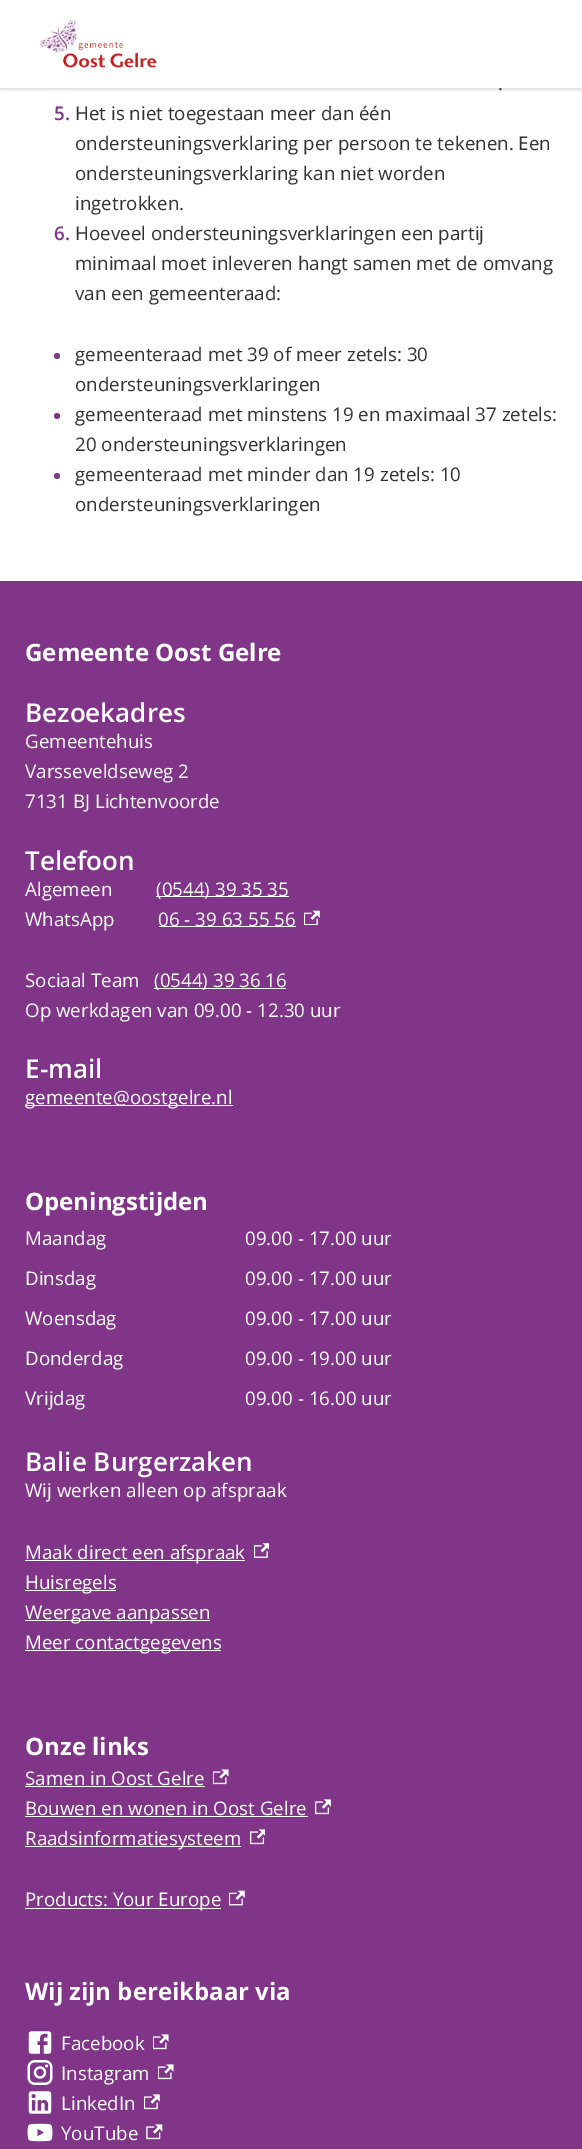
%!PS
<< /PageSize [582 2149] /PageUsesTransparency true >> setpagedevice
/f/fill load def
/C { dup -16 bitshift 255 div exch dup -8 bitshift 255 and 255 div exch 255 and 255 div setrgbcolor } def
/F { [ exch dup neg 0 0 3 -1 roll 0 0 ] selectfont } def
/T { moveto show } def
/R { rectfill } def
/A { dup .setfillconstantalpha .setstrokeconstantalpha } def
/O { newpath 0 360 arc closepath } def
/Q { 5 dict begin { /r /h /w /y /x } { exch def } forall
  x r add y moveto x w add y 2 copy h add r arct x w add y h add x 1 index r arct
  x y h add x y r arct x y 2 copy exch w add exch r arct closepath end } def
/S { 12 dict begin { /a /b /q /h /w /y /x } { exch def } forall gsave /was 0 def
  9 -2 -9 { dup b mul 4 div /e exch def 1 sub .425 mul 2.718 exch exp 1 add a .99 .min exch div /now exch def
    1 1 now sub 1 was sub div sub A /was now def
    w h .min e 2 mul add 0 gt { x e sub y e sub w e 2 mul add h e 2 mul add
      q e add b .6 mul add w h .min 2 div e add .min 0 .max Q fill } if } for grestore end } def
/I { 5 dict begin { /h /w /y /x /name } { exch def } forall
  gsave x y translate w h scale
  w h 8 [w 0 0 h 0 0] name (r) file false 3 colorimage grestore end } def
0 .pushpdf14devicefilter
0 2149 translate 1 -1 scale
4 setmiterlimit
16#FFFFFF C
0 0 582 2149 R
16#000000 C
0 1 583 88 0 2 .2 S
/OpenSans-Regular 18.75 F
16#333333 C
(.) 498 90 T
16#FFFFFF C
0 0 582 88 R
(1.rgb) 40 20 117 48 I
/OpenSans-SemiBold 18.75 F
16#803588 C
(5.) 54 120 T
/OpenSans-Regular 18.75 F
16#333333 C
(Het is niet toegestaan meer dan één) 75 120 T
(ondersteuningsverklaring per persoon te tekenen. Een) 75 150 T
(ondersteuningsverklaring kan niet worden) 75 180 T
(ingetrokken.) 75 210 T
/OpenSans-SemiBold 18.75 F
16#803588 C
(6.) 54 240 T
/OpenSans-Regular 18.75 F
16#333333 C
(Hoeveel ondersteuningsverklaringen een partij) 75 240 T
(minimaal moet inleveren hangt samen met de omvang) 75 270 T
(van een gemeenteraad:) 75 300 T
16#803588 C
57 356 3 O f
16#333333 C
(gemeenteraad met 39 of meer zetels: 30) 75 361 T
(ondersteuningsverklaringen) 75 391 T
16#803588 C
57 416 3 O f
16#333333 C
(gemeenteraad met minstens 19 en maximaal 37 zetels:) 75 421 T
(20 ondersteuningsverklaringen) 75 451 T
16#803588 C
57 476 3 O f
16#333333 C
(gemeenteraad met minder dan 19 zetels: 10) 75 481 T
(ondersteuningsverklaringen) 75 511 T
16#803588 C
0 581 582 1568 R
/OpenSans-Bold 24 F
16#FFFFFF C
(Gemeente Oost Gelre) 25 661 T
/OpenSans-SemiBold 26 F
(Bezoekadres) 25 722 T
/OpenSans-Regular 18.75 F
(Gemeentehuis) 25 748 T
(Varsseveldseweg 2) 25 778 T
(7131 BJ Lichtenvoorde) 25 808 T
/OpenSans-SemiBold 26 F
(Telefoon) 25 870 T
/OpenSans-Regular 18.75 F
(Algemeen) 25 896 T
156 896 133 1 R
(\(0544\) 39 35 35) 156 896 T
(WhatsApp) 25 926 T
159 926 137 1 R
(06 - 39 63 55 56) 158 926 T
(2.rgb) 304 910 16 15 I
(Sociaal Team) 25 987 T
154 988 132 1 R
(\(0544\) 39 36 16) 154 987 T
(Op werkdagen van 09.00 - 12.30 uur) 25 1017 T
/OpenSans-SemiBold 26 F
(E-mail) 25 1078 T
25 1105 208 1 R
/OpenSans-Regular 18.75 F
(gemeente@oostgelre.nl) 25 1104 T
/OpenSans-Bold 24 F
(Openingstijden) 25 1210 T
/OpenSans-Regular 18.75 F
(Maandag) 25 1245 T
(09.00 - 17.00 uur) 245 1245 T
(Dinsdag) 25 1285 T
(09.00 - 17.00 uur) 245 1285 T
(Woensdag) 25 1325 T
(09.00 - 17.00 uur) 245 1325 T
(Donderdag) 25 1365 T
(09.00 - 19.00 uur) 245 1365 T
(Vrijdag) 25 1405 T
(09.00 - 16.00 uur) 245 1405 T
/OpenSans-SemiBold 26 F
(Balie Burgerzaken) 25 1471 T
/OpenSans-Regular 18.75 F
(Wij werken alleen op afspraak) 25 1497 T
25 1560 220 1 R
(Maak direct een afspraak) 25 1559 T
(3.rgb) 254 1543 15 15 I
25 1590 91 1 R
(Huisregels) 25 1589 T
25 1620 185 1 R
(Weergave aanpassen) 25 1619 T
25 1650 196 1 R
(Meer contactgegevens) 25 1649 T
/OpenSans-Bold 24 F
(Onze links) 25 1755 T
/OpenSans-Regular 18.75 F
(Samen in Oost Gelre) 25 1785 T
25 1786 180 1 R
(4.rgb) 213 1769 16 16 I
(Bouwen en wonen in Oost Gelre) 25 1815 T
25 1816 283 1 R
(5.rgb) 315 1799 16 16 I
25 1846 216 1 R
(Raadsinformatiesysteem) 25 1845 T
(6.rgb) 250 1829 15 16 I
25 1908 196 1 R
(Products: Your Europe) 25 1906 T
(7.rgb) 229 1890 16 16 I
/OpenSans-Bold 24 F
(Wij zijn bereikbaar via) 25 2000 T
(8.rgb) 28 2031 24 23 I
/OpenSans-Regular 18.75 F
(Facebook) 61 2050 T
(4.rgb) 153 2034 16 16 I
(9.rgb) 27 2060 26 25 I
(Instagram) 61 2080 T
(4.rgb) 158 2064 16 16 I
(10.rgb) 28 2091 24 23 I
(LinkedIn) 61 2110 T
(11.rgb) 144 2094 16 16 I
(12.rgb) 27 2123 26 19 I
(YouTube) 61 2140 T
(13.rgb) 146 2124 17 16 I
.poppdf14devicefilter showpage
